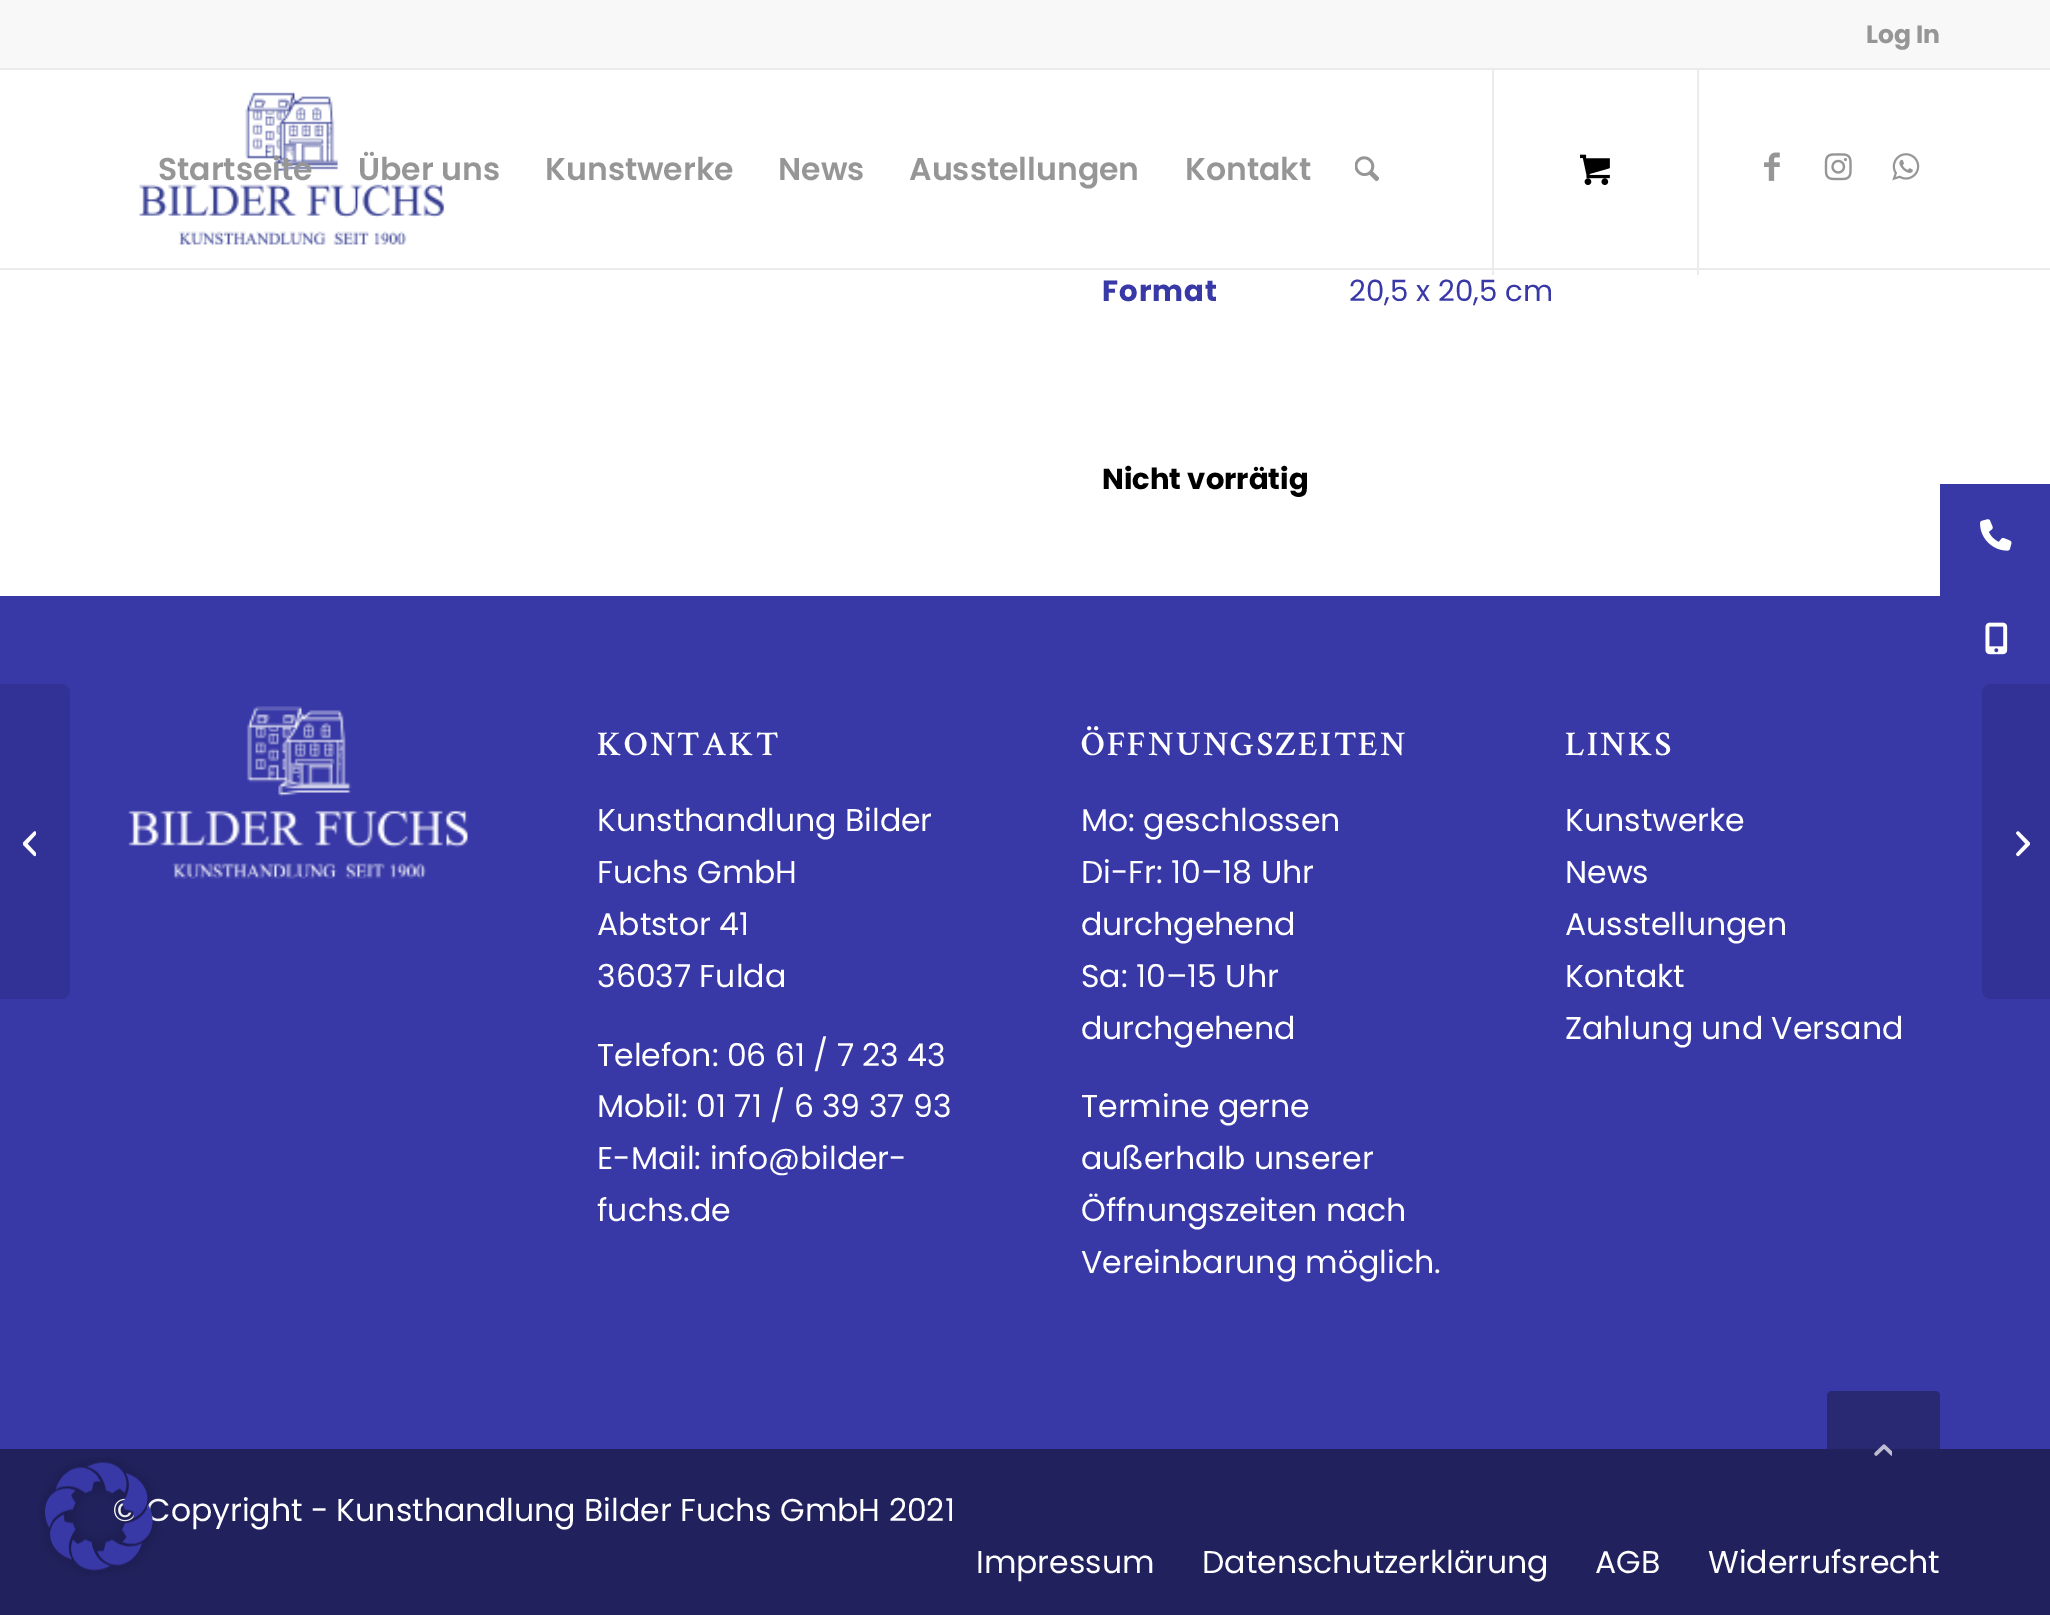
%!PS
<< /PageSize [2050 1615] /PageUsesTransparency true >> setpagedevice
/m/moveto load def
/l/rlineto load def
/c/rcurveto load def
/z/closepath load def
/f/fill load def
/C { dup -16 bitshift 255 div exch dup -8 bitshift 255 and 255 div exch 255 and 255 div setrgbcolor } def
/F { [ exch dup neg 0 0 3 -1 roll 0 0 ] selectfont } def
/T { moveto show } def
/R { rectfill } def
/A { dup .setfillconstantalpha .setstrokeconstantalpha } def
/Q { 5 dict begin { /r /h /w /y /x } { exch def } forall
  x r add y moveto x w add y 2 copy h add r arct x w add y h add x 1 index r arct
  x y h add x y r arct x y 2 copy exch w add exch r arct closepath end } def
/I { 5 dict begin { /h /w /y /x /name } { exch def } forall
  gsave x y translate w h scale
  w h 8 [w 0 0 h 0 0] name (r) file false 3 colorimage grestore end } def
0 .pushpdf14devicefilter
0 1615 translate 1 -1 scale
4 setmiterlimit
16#FFFFFF C
0 0 2050 1615 R
16#F8F8F8 C
0 0 2050 68 R
16#EBEBEB C
0 68 2050 2 R
/Poppins-Bold 25 F
16#969696 C
(Log In) 1866 43 T
16#EBEBEB C
0 268 2050 2 R
(1.rgb) 139 92 306 153 I
/Poppins-SemiBold 31.5 F
16#969696 C
(Startseite) 158 180 T
(Über uns) 358 180 T
(Kunstwerke) 545 180 T
(News) 778 180 T
(Ausstellungen) 909 180 T
(Kontakt) 1185 180 T
(2.rgb) 1355 156 24 26 I
16#EBEBEB C
1697 70 2 205 R
1492 70 2 205 R
(3.rgb) 1580 154 30 31 I
(4.rgb) 1764 152 16 29 I
(5.rgb) 1824 153 28 28 I
(6.rgb) 1892 153 28 28 I
16#3838A7 C
0 596 2050 853 R
16#323296 C
0 684 m 61 0 l 5 0 9 4 9 9 c 0 297 l 0 5 -4 9 -9 9 c -61 0 l z f
(7.rgb) 23 831 13 26 I
/Poppins-Bold 29.25 F
16#3838A7 C
1102 301 m 1 0 (Format) ashow
/Poppins-Regular 29.25 F
(20,5 x 20,5 cm) 1349 301 T
/Poppins-Bold 29 F
16#000000 C
(Nicht vorrätig) 1102 489 T
(8.rgb) 128 706 340 173 I
/CrimsonText-SemiBold 34.75 F
16#FFFFFF C
597 755 m 2.25 0 (KONTAKT) ashow
/Poppins-Regular 31.5 F
(Kunsthandlung Bilder) 597 831 T
(Fuchs GmbH) 597 883 T
(Abtstor 41) 597 935 T
(36037 Fulda) 597 987 T
(Telefon: 06 61 / 7 23 43) 597 1066 T
(Mobil: 01 71 / 6 39 37 93) 597 1117 T
(E-Mail: info@bilder-) 597 1169 T
(fuchs.de) 597 1221 T
/CrimsonText-SemiBold 34.75 F
1081 755 m 2.25 0 (ÖFFNUNGSZEITEN) ashow
/Poppins-Regular 31.5 F
(Mo: geschlossen) 1081 831 T
(Di-Fr: 10–18 Uhr) 1081 883 T
(durchgehend) 1081 935 T
(Sa: 10–15 Uhr) 1081 987 T
(durchgehend) 1081 1039 T
(Termine gerne) 1081 1117 T
(außerhalb unserer) 1081 1169 T
(Öffnungszeiten nach) 1081 1221 T
(Vereinbarung möglich.) 1081 1273 T
/CrimsonText-SemiBold 34.75 F
1565 755 m 2.25 0 (LINKS) ashow
/Poppins-Regular 31.5 F
(Kunstwerke) 1565 831 T
(News) 1565 883 T
(Ausstellungen) 1565 935 T
(Kontakt) 1565 987 T
(Zahlung und Versand) 1565 1039 T
16#21215D C
0 1449 2050 166 R
16#FFFFFF C
(© Copyright - Kunsthandlung Bilder Fuchs GmbH 2021) 113 1521 T
(Impressum) 976 1573 T
(Datenschutzerklärung) 1202 1573 T
(AGB) 1595 1573 T
(Widerrufsrecht) 1708 1573 T
16#323296 C
1991 684 m 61 0 l 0 315 l -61 0 l -5 0 -9 -4 -9 -9 c 0 -297 l 0 -5 4 -9 9 -9 c z f
(9.rgb) 2016 831 14 26 I
16#3838A7 C
1940 484 110 112 R
(10.rgb) 1980 519 32 32 I
(11.rgb) 1985 622 23 33 I
(12.rgb) 39 1457 123 119 I
0.7 A
16#21215D C
1827 1391 113 112 5 Q f
1 A
(13.rgb) 1874 1444 18 12 I
.poppdf14devicefilter showpage
